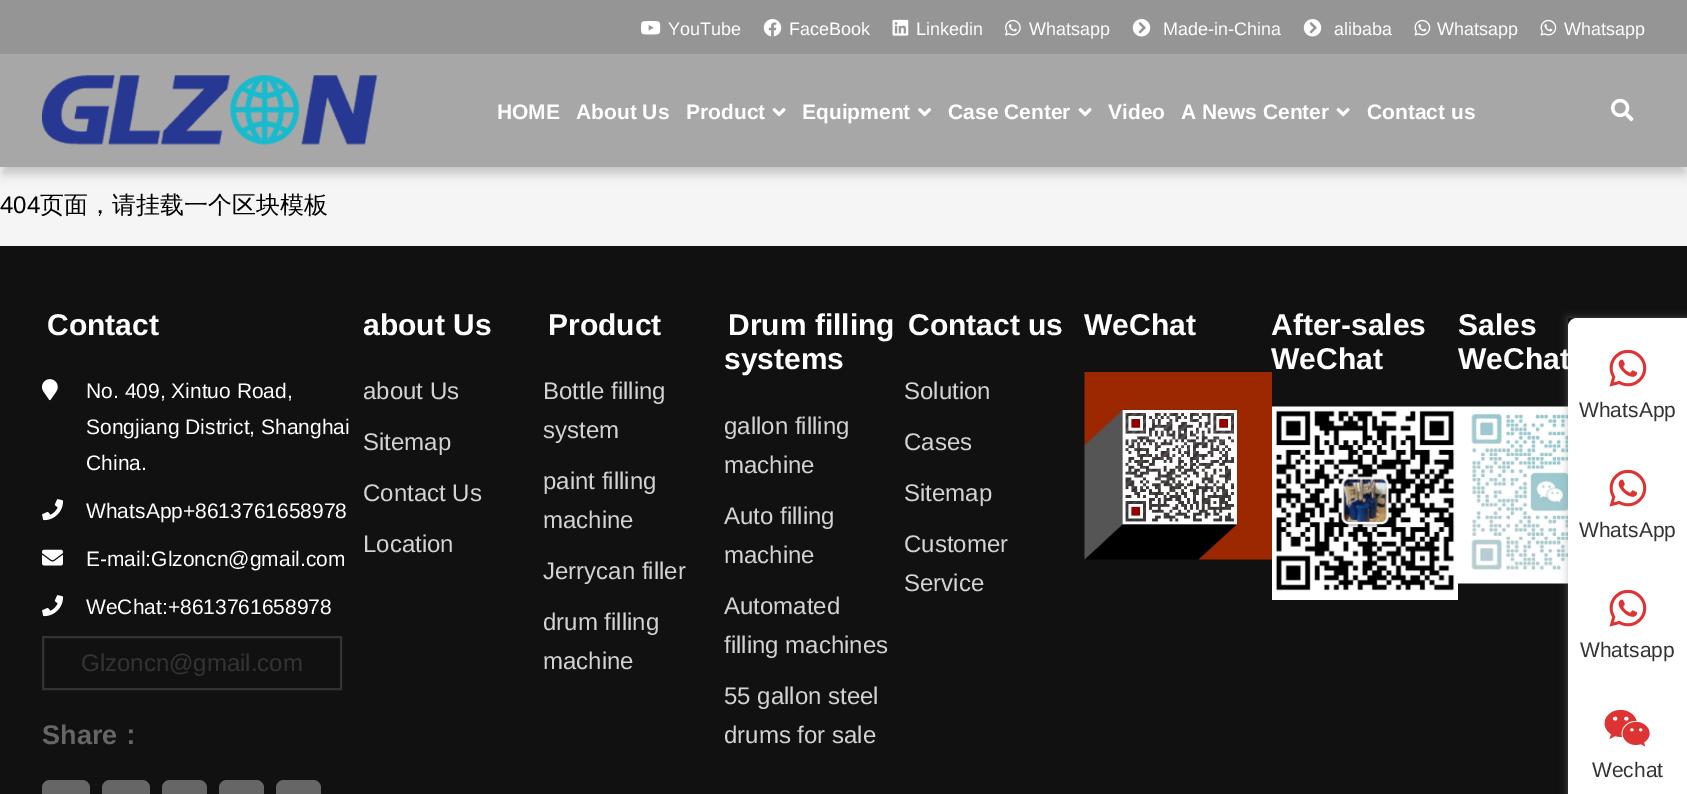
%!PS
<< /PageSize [1687 794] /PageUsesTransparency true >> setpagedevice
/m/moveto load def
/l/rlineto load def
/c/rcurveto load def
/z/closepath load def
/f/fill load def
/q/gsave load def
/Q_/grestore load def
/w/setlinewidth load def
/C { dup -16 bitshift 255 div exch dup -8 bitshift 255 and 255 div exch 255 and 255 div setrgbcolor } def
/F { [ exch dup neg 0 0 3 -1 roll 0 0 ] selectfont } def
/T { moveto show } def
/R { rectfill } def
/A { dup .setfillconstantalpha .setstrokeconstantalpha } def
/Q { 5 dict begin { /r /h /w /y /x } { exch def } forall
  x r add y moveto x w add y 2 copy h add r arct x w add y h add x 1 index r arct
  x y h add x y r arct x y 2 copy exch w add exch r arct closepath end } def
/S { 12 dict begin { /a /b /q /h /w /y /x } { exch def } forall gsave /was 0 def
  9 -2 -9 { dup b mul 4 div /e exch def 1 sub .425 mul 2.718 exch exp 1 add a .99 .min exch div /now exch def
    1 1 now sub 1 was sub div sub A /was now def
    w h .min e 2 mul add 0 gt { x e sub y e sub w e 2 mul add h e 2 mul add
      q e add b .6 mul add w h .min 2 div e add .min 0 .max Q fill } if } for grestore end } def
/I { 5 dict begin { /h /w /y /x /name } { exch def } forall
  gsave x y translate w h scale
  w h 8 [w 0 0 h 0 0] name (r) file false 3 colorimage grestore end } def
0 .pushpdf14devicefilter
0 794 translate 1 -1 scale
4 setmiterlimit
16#F5F5F5 C
0 0 1687 794 R
q
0 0 m 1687 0 l 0 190 l -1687 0 l z 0 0 m 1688 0 l 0 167 l -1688 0 l z eoclip newpath
16#000000 C
3 14 1682 160 0 5 .2 S
Q_
16#959595 C
0 0 1687 54 R
(1.rgb) 641 21 20 14 I
/LiberationSans-Regular 18 F
16#FFFFFF C
(YouTube) 668 35 T
(2.rgb) 763 19 19 18 I
(FaceBook) 789 35 T
(3.rgb) 892 19 17 17 I
(Linkedin) 916 35 T
(4.rgb) 1005 19 16 17 I
(Whatsapp) 1029 35 T
(5.rgb) 1132 19 19 18 I
(Made-in-China) 1163 35 T
(5.rgb) 1303 19 19 18 I
(alibaba) 1334 35 T
(6.rgb) 1414 19 17 17 I
(Whatsapp) 1437 35 T
(6.rgb) 1540 19 17 17 I
(Whatsapp) 1564 35 T
0.4 A
16#333333 C
0 54 1687 113 R
1 A
(7.rgb) 42 75 336 70 I
/LiberationSans-Bold 21 F
16#FFFFFF C
(HOME) 497 119 T
(About Us) 576 119 T
(Product) 686 119 T
(8.rgb) 772 107 14 10 I
(Equipment) 802 119 T
(9.rgb) 918 108 14 9 I
(Case Center) 948 119 T
(8.rgb) 1078 107 14 10 I
(Video) 1108 119 T
(A News Center) 1181 119 T
(8.rgb) 1336 107 14 10 I
(Contact us) 1367 119 T
(10.rgb) 1611 98 23 24 I
/LiberationSans-Regular 24 F
16#000000 C
(404) 0 213 T
/WenQuanYiZenHei-Medium 24 F
(页面，请挂载一个区块模板) 40 213 T
16#111111 C
0 246 1687 548 R
/LiberationSans-Bold 30 F
16#FFFFFF C
(Contact) 47 335 T
(11.rgb) 42 379 16 22 I
/LiberationSans-Regular 21 F
(No. 409, Xintuo Road,) 86 398 T
(Songjiang District, Shanghai) 86 434 T
(China.) 86 470 T
(12.rgb) 42 499 21 22 I
(WhatsApp+8613761658978) 86 518 T
(13.rgb) 42 549 21 17 I
(E-mail:Glzoncn@gmail.com) 86 566 T
(12.rgb) 42 595 21 22 I
(WeChat:+8613761658978) 86 614 T
16#333333 C
2 w
43 637 298 52 rectstroke
/LiberationSans-Regular 24 F
(Glzoncn@gmail.com) 81 671 T
/LiberationSans-Bold 27 F
16#666666 C
(Share) 42 744 T
/WenQuanYiZenHei-Bold 27 F
(：) 117 744 T
42 780 48 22 8 Q f
102 780 48 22 8 Q f
162 780 45 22 8 Q f
219 780 45 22 8 Q f
276 780 45 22 8 Q f
/LiberationSans-Bold 30 F
16#FFFFFF C
(about Us) 363 335 T
/LiberationSans-Regular 24 F
16#D3D3D3 C
(about Us) 363 399 T
(Sitemap) 363 450 T
(Contact Us) 363 501 T
(Location) 363 552 T
/LiberationSans-Bold 30 F
16#FFFFFF C
(Product) 548 335 T
/LiberationSans-Regular 24 F
16#D3D3D3 C
(Bottle filling) 543 399 T
(system) 543 438 T
(paint filling) 543 489 T
(machine) 543 528 T
(Jerrycan filler) 543 579 T
(drum filling) 543 630 T
(machine) 543 669 T
/LiberationSans-Bold 30 F
16#FFFFFF C
(Drum filling) 728 335 T
(systems) 724 369 T
/LiberationSans-Regular 24 F
16#D3D3D3 C
(gallon filling) 724 434 T
(machine) 724 473 T
(Auto filling) 724 524 T
(machine) 724 563 T
(Automated) 724 614 T
(filling machines) 724 653 T
(55 gallon steel) 724 704 T
(drums for sale) 724 743 T
/LiberationSans-Bold 30 F
16#FFFFFF C
(Contact us) 908 335 T
/LiberationSans-Regular 24 F
16#D3D3D3 C
(Solution) 904 399 T
(Cases) 904 450 T
(Sitemap) 904 501 T
(Customer) 904 552 T
(Service) 904 591 T
/LiberationSans-Bold 30 F
16#FFFFFF C
(WeChat) 1084 335 T
(14.rgb) 1084 372 188 188 I
(After-sales) 1271 335 T
(WeChat) 1271 369 T
(15.rgb) 1272 406 186 194 I
(Sales) 1458 335 T
(WeChat) 1458 369 T
(16.rgb) 1458 406 110 178 I
q
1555 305 m 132 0 l 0 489 l -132 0 l z 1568 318 m 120 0 l 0 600 l -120 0 l z eoclip newpath
16#8D8D8D C
1568 318 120 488 0 4 .5 S
Q_
1577 318 m 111 0 l 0 120 l -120 0 l 0 -111 l 0 -5 4 -9 9 -9 c z f
(17.rgb) 1609 349 38 38 I
/LiberationSans-Regular 21 F
16#333333 C
(WhatsApp) 1579 417 T
16#FFFFFF C
1568 438 119 356 R
(17.rgb) 1609 469 38 38 I
16#333333 C
(WhatsApp) 1579 537 T
(17.rgb) 1609 589 38 38 I
(Whatsapp) 1580 657 T
(18.rgb) 1604 709 46 38 I
(Wechat) 1592 777 T
.poppdf14devicefilter showpage
